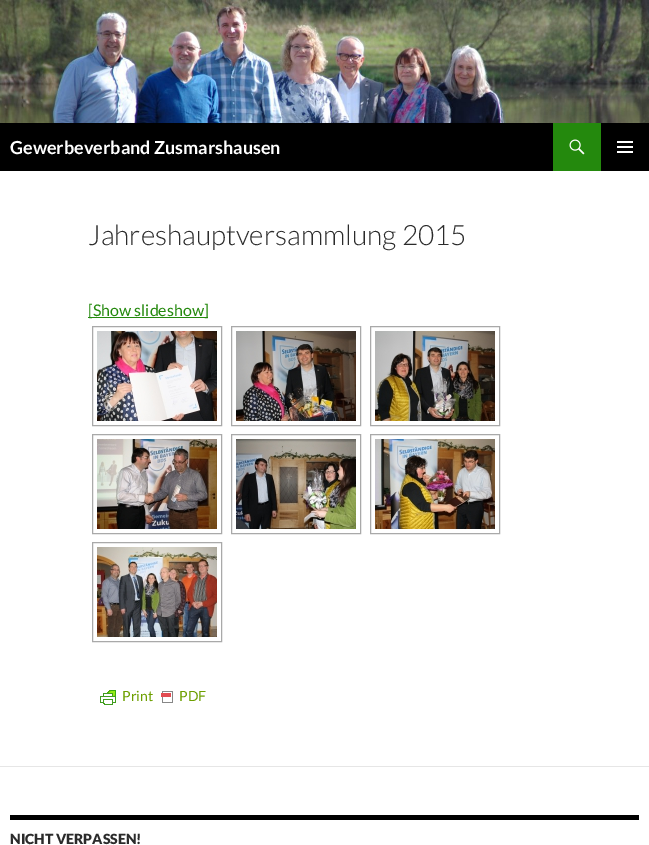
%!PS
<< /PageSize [649 845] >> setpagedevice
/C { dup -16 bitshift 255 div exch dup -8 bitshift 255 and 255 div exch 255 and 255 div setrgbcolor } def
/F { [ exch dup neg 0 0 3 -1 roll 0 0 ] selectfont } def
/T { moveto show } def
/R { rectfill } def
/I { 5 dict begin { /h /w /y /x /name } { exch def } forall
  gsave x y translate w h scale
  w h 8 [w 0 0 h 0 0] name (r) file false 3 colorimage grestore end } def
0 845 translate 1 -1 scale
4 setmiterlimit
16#FFFFFF C
0 0 649 845 R
(1.rgb) 0 0 649 123 I
16#000000 C
0 123 649 48 R
/Lato-Bold 18 F
16#FFFFFF C
(Gewerbeverband Zusmarshausen) 10 154 T
16#24890D C
553 123 48 48 R
(2.rgb) 569 139 16 16 I
(3.rgb) 617 141 16 12 I
/Lato-Light 28 F
16#2B2B2B C
(Jahreshauptversammlung 2015) 88 245 T
16#24890D C
88 317 120 1 R
/Lato-Regular 16 F
([Show slideshow]) 88 316 T
16#A9A9A9 C
92.5 326.5 129 99 rectstroke
(4.rgb) 97 331 120 90 I
231.5 326.5 129 99 rectstroke
(5.rgb) 236 331 120 90 I
370.5 326.5 129 99 rectstroke
(6.rgb) 375 331 120 90 I
92.5 434.5 129 99 rectstroke
(7.rgb) 97 439 120 90 I
231.5 434.5 129 99 rectstroke
(8.rgb) 236 439 120 90 I
370.5 434.5 129 99 rectstroke
(9.rgb) 375 439 120 90 I
92.5 542.5 129 99 rectstroke
(10.rgb) 97 547 120 90 I
(11.rgb) 100 690 16 15 I
/Lato-Regular 14 F
16#6D9F00 C
(Print) 122 701 T
(12.rgb) 161 691 12 12 I
(PDF) 179 701 T
16#E6E6E6 C
0 766 649 1 R
16#000000 C
10 815 629 5 R
/Lato-Black 14 F
16#2B2B2B C
(NICHT VERPASSEN!) 10 844 T
showpage
